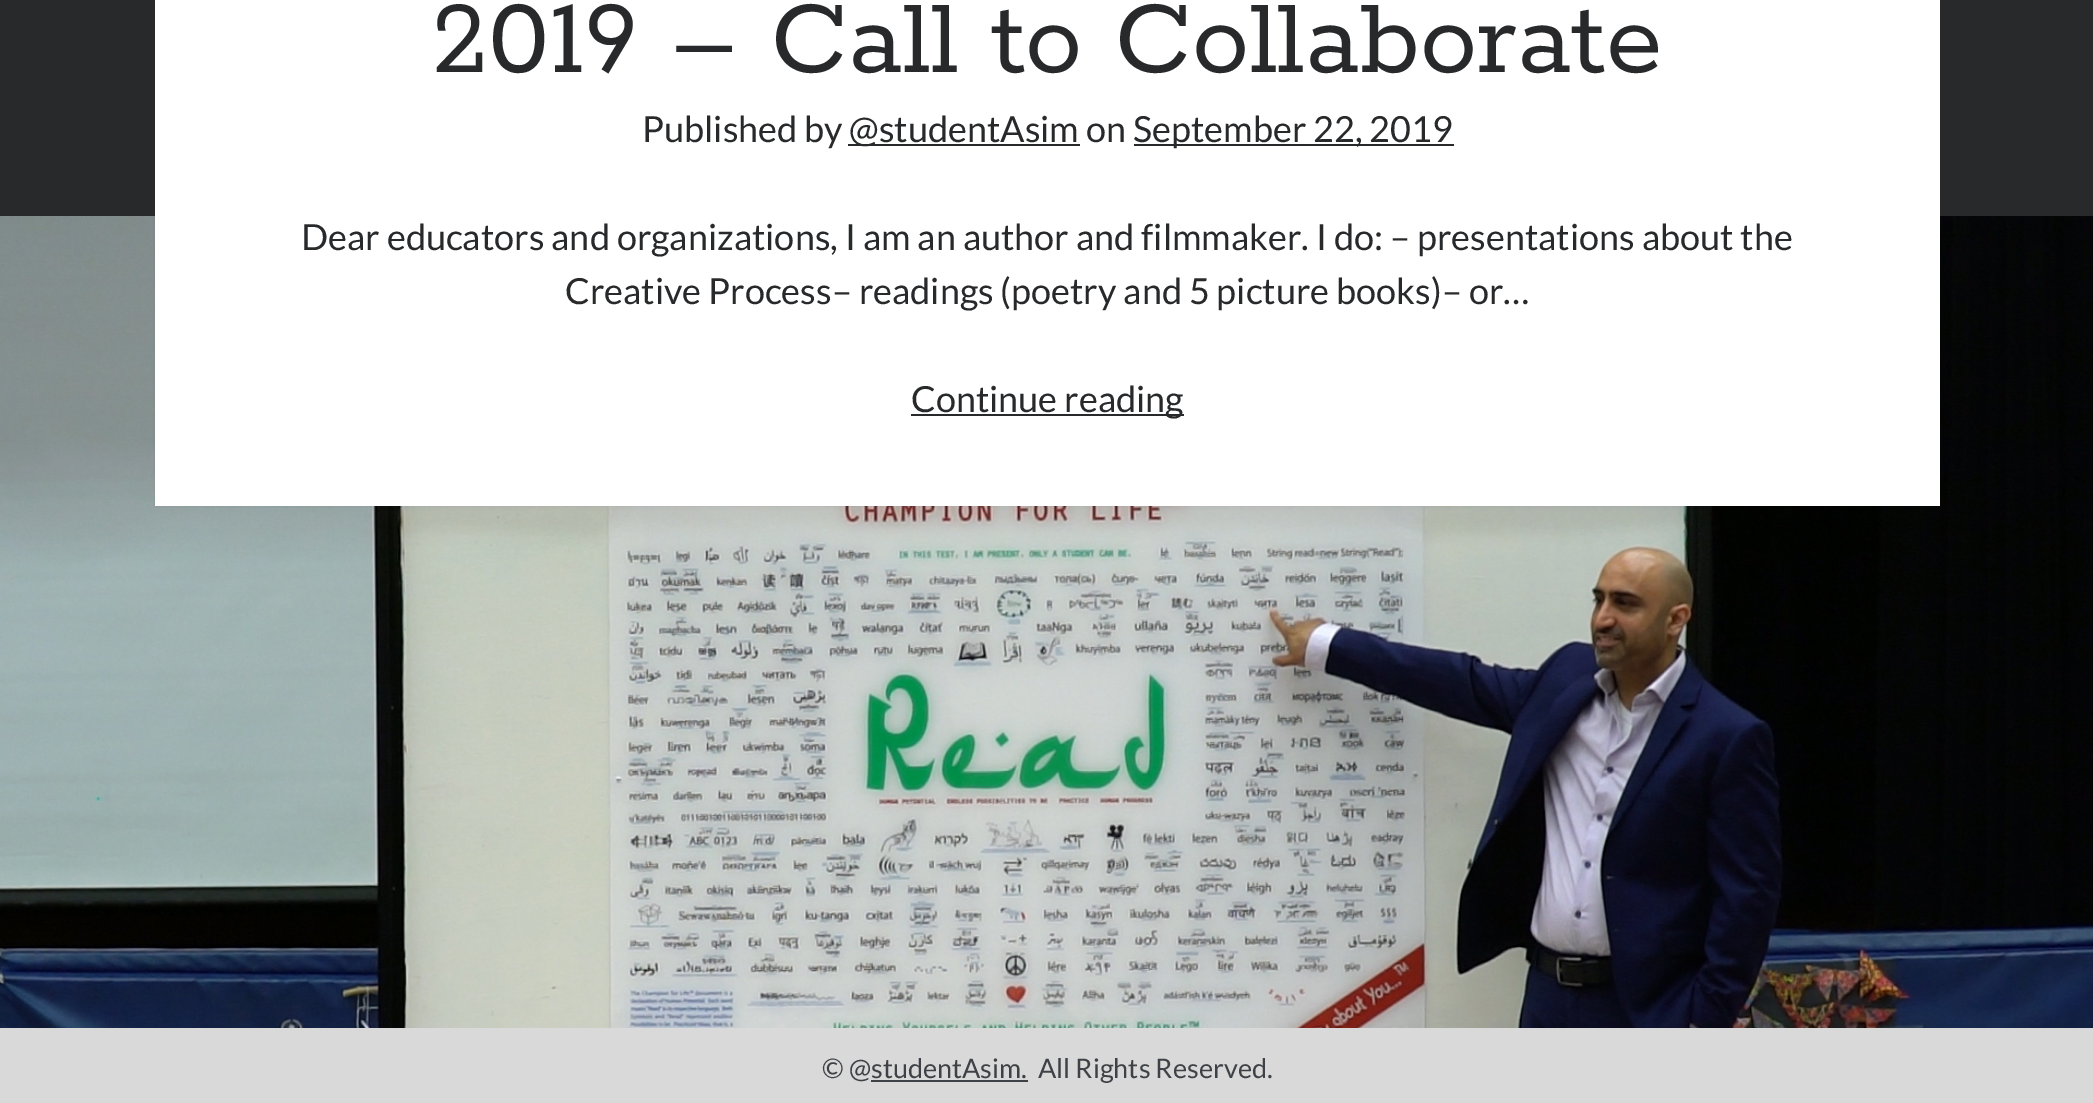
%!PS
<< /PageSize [2093 1103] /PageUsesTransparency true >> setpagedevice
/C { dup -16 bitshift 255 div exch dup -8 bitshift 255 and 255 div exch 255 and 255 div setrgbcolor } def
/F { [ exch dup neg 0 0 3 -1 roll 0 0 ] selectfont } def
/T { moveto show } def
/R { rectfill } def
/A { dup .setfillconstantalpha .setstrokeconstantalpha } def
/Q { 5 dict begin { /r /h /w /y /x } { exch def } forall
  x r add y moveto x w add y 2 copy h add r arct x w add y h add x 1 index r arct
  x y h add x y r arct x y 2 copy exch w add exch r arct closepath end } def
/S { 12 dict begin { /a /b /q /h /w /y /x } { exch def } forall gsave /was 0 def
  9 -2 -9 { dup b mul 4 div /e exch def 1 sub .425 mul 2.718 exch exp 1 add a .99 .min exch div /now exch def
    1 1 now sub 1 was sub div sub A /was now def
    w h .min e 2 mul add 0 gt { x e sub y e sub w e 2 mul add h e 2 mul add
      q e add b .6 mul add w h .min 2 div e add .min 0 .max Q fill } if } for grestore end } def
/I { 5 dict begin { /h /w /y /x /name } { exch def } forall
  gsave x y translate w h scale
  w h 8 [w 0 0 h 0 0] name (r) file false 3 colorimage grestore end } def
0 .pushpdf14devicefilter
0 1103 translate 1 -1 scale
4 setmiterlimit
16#27292B C
0 0 2093 1103 R
(1.rgb) 0 216 2093 812 I
16#272B2F C
155 -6 1785 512 0 2 .1 S
16#FFFFFF C
155 0 1785 506 R
/Rokkitt-Regular 114.75 F
16#27292B C
(2019 – Call to Collaborate) 432 72 T
/Lato-Regular 36 F
(Published by) 642 142 T
848 144 232 2 R
(@studentAsim on) 849 142 T
1134 144 320 2 R
(September 22, 2019) 1133 142 T
(Dear educators and organizations, I am an author and filmmaker. I do: – presentations about the) 301 250 T
(Creative Process– readings \(poetry and 5 picture books\)– or…) 565 304 T
911 414 273 2 R
(Continue reading) 911 412 T
16#D9D9D9 C
0 1028 2093 75 R
/Lato-Regular 27 F
16#3E4145 C
(© @studentAsim.) 822 1078 T
871 1080 157 2 R
(All Rights Reserved.) 1038 1078 T
.poppdf14devicefilter showpage
